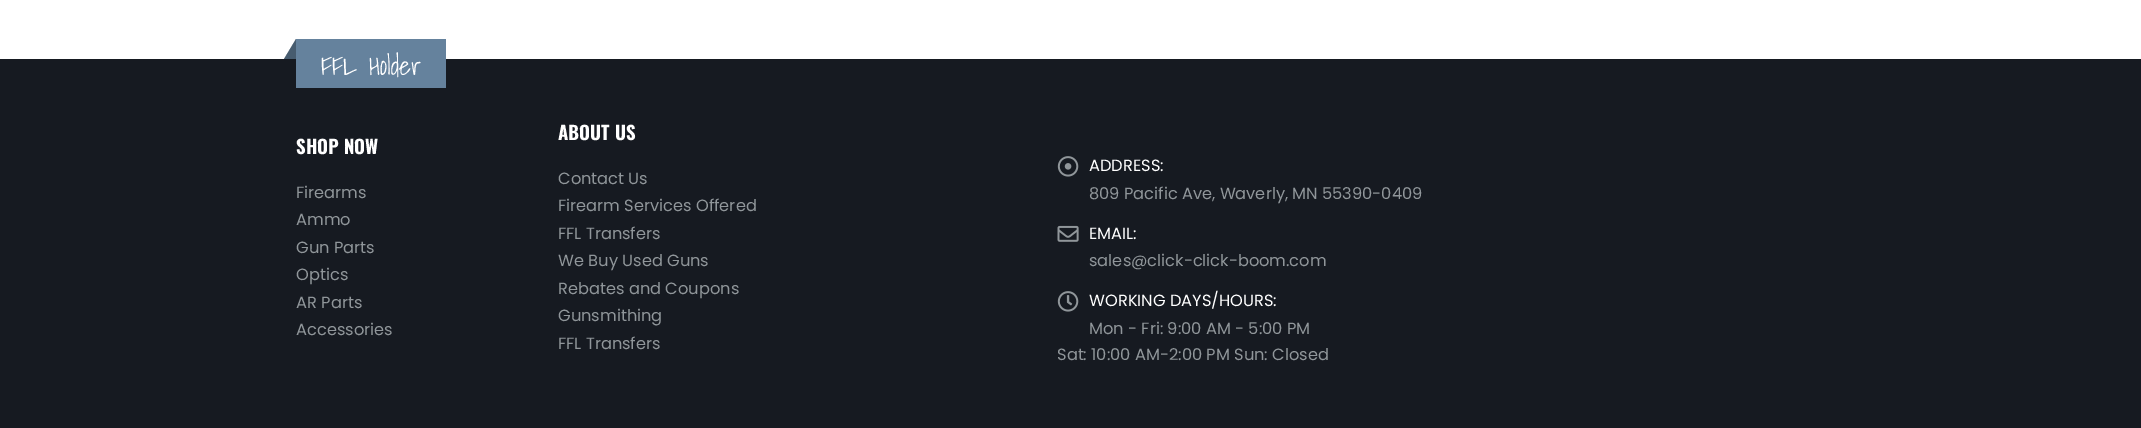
%!PS
<< /PageSize [2141 428] >> setpagedevice
/m/moveto load def
/l/rlineto load def
/z/closepath load def
/f/fill load def
/C { dup -16 bitshift 255 div exch dup -8 bitshift 255 and 255 div exch 255 and 255 div setrgbcolor } def
/F { [ exch dup neg 0 0 3 -1 roll 0 0 ] selectfont } def
/T { moveto show } def
/R { rectfill } def
/I { 5 dict begin { /h /w /y /x /name } { exch def } forall
  gsave x y translate w h scale
  w h 8 [w 0 0 h 0 0] name (r) file false 3 colorimage grestore end } def
0 428 translate 1 -1 scale
4 setmiterlimit
16#FFFFFF C
0 0 2141 428 R
16#161A21 C
0 59 2141 369 R
16#65829D C
296 39 150 49 R
16#475C6F C
296 39 m 0 20 l -12 0 l z f
/ShadowsIntoLight-Regular 26 F
16#FFFFFF C
(FFL Holder) 321 75 T
/Oswald-Bold 18.75 F
(SHOP NOW) 296 154 T
/Poppins-Regular 16.25 F
16#90969A C
(Firearms) 296 198 T
(Ammo) 296 225 T
(Gun Parts) 296 253 T
(Optics) 296 280 T
(AR Parts) 296 308 T
(Accessories) 296 335 T
/Oswald-Bold 18.75 F
16#FFFFFF C
(ABOUT US) 558 140 T
/Poppins-Regular 16.25 F
16#90969A C
(Contact Us) 558 184 T
(Firearm Services Offered) 558 211 T
(FFL Transfers) 558 239 T
(We Buy Used Guns) 558 266 T
(Rebates and Coupons) 558 294 T
(Gunsmithing) 558 321 T
(FFL Transfers) 558 349 T
(1.rgb) 1057 156 22 21 I
16#FFFFFF C
(ADDRESS:) 1089 171 T
16#90969A C
(809 Pacific Ave, Waverly, MN 55390-0409) 1089 199 T
(2.rgb) 1057 225 22 17 I
16#FFFFFF C
(EMAIL:) 1089 239 T
16#90969A C
(sales@click-click-boom.com) 1089 266 T
(3.rgb) 1057 291 22 21 I
16#FFFFFF C
(WORKING DAYS/HOURS:) 1089 306 T
16#90969A C
(Mon - Fri: 9:00 AM - 5:00 PM) 1089 334 T
(Sat: 10:00 AM-2:00 PM Sun: Closed) 1057 360 T
showpage
